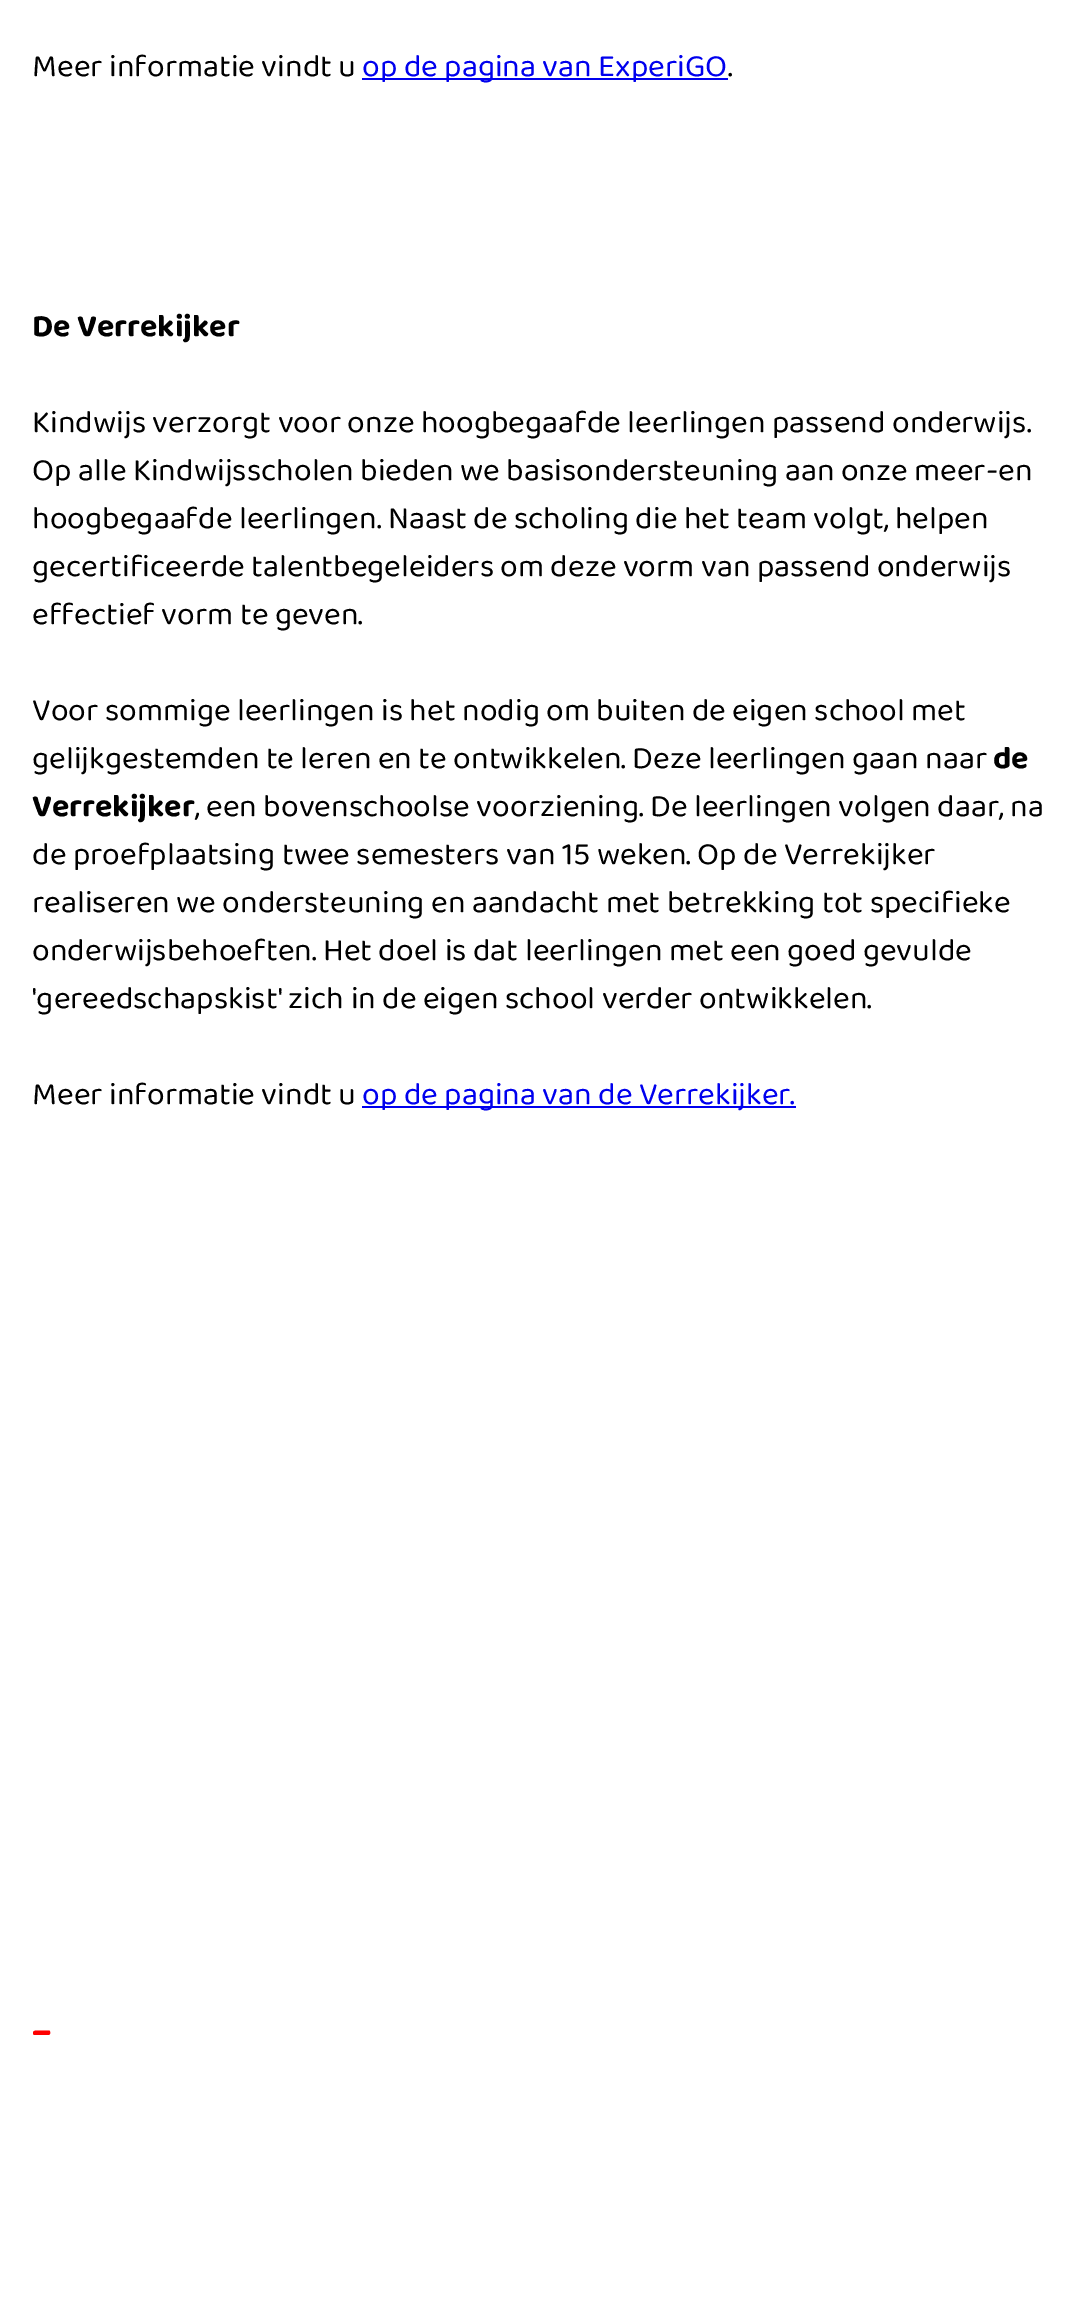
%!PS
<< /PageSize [1076 2314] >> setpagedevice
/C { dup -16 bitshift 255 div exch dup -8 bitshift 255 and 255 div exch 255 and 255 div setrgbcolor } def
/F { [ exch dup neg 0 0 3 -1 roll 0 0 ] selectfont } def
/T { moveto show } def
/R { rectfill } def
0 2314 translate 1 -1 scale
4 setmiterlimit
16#FFFFFF C
0 0 1076 2314 R
/Baloo2-Regular 32 F
16#000000 C
(Meer informatie vindt u) 32 76 T
16#0000EE C
362 78 366 2 R
(op de pagina van ExperiGO) 362 76 T
16#000000 C
(.) 728 76 T
/Baloo2-Bold 32 F
(De Verrekijker) 32 336 T
/Baloo2-Regular 32 F
(Kindwijs verzorgt voor onze hoogbegaafde leerlingen passend onderwijs.) 32 432 T
(Op alle Kindwijsscholen bieden we basisondersteuning aan onze meer-en) 32 480 T
(hoogbegaafde leerlingen. Naast de scholing die het team volgt, helpen) 32 528 T
(gecertificeerde talentbegeleiders om deze vorm van passend onderwijs) 32 576 T
(effectief vorm te geven.) 32 624 T
(Voor sommige leerlingen is het nodig om buiten de eigen school met) 32 720 T
(gelijkgestemden te leren en te ontwikkelen. Deze leerlingen gaan naar) 32 768 T
/Baloo2-Bold 32 F
(de) 993 768 T
(Verrekijker) 32 816 T
/Baloo2-Regular 32 F
(, een bovenschoolse voorziening. De leerlingen volgen daar, na) 195 816 T
(de proefplaatsing twee semesters van 15 weken. Op de Verrekijker) 32 864 T
(realiseren we ondersteuning en aandacht met betrekking tot specifieke) 32 912 T
(onderwijsbehoeften. Het doel is dat leerlingen met een goed gevulde) 32 960 T
('gereedschapskist' zich in de eigen school verder ontwikkelen.) 32 1008 T
(Meer informatie vindt u) 32 1104 T
16#0000EE C
362 1106 434 2 R
(op de pagina van de Verrekijker.) 362 1104 T
/Baloo2-Bold 36 F
16#FE0000 C
(–) 32 2042 T
showpage
